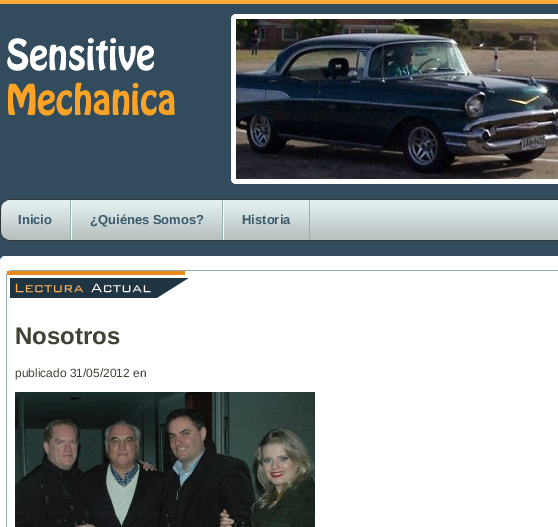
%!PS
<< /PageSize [558 527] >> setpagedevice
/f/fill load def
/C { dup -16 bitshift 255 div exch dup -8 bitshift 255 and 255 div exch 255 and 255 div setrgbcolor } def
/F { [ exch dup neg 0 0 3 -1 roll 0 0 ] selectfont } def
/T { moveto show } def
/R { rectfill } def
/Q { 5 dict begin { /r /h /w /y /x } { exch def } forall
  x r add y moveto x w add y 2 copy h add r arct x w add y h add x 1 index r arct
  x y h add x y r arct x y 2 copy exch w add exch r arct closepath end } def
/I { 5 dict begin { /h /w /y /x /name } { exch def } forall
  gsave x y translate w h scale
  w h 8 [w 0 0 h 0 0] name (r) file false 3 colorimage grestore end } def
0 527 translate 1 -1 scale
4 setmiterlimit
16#324C5D C
0 0 558 527 R
16#FBAA38 C
0 0 558 4 R
(1.rgb) 7 38 168 78 I
16#FFFFFF C
231 14 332 170 5 Q f
(2.rgb) 236 19 322 160 I
(3.rgb) 9 199 549 42 I
(4.rgb) 0 199 9 42 I
16#94B2AF C
70 200 1 40 R
/LiberationSans-Bold 13 F
16#3B5B6B C
(Inicio) 18 224 T
16#94B2AF C
222 200 1 40 R
16#F8F8F8 C
71 200 1 40 R
16#3B5B6B C
(¿Quiénes Somos?) 90 224 T
16#94B2AF C
309 200 1 40 R
16#F8F8F8 C
223 200 1 40 R
16#3B5B6B C
(Historia) 242 224 T
16#FFFFFF C
0 256 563 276 5 Q f
16#94ACB6 C
6 270 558 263 6 Q f
16#FFFFFF C
7 271 551 256 R
16#E88A19 C
7 271 178 4 R
16#1F3543 C
10 278 147 20 R
(5.rgb) 157 278 32 20 I
(6.rgb) 15 283 69 10 I
(7.rgb) 91 283 60 10 I
/LiberationSans-Bold 24 F
16#414134 C
(Nosotros) 15 344 T
/LiberationSans-Regular 12 F
(publicado 31/05/2012 en) 15 377 T
(8.rgb) 15 392 300 135 I
showpage
